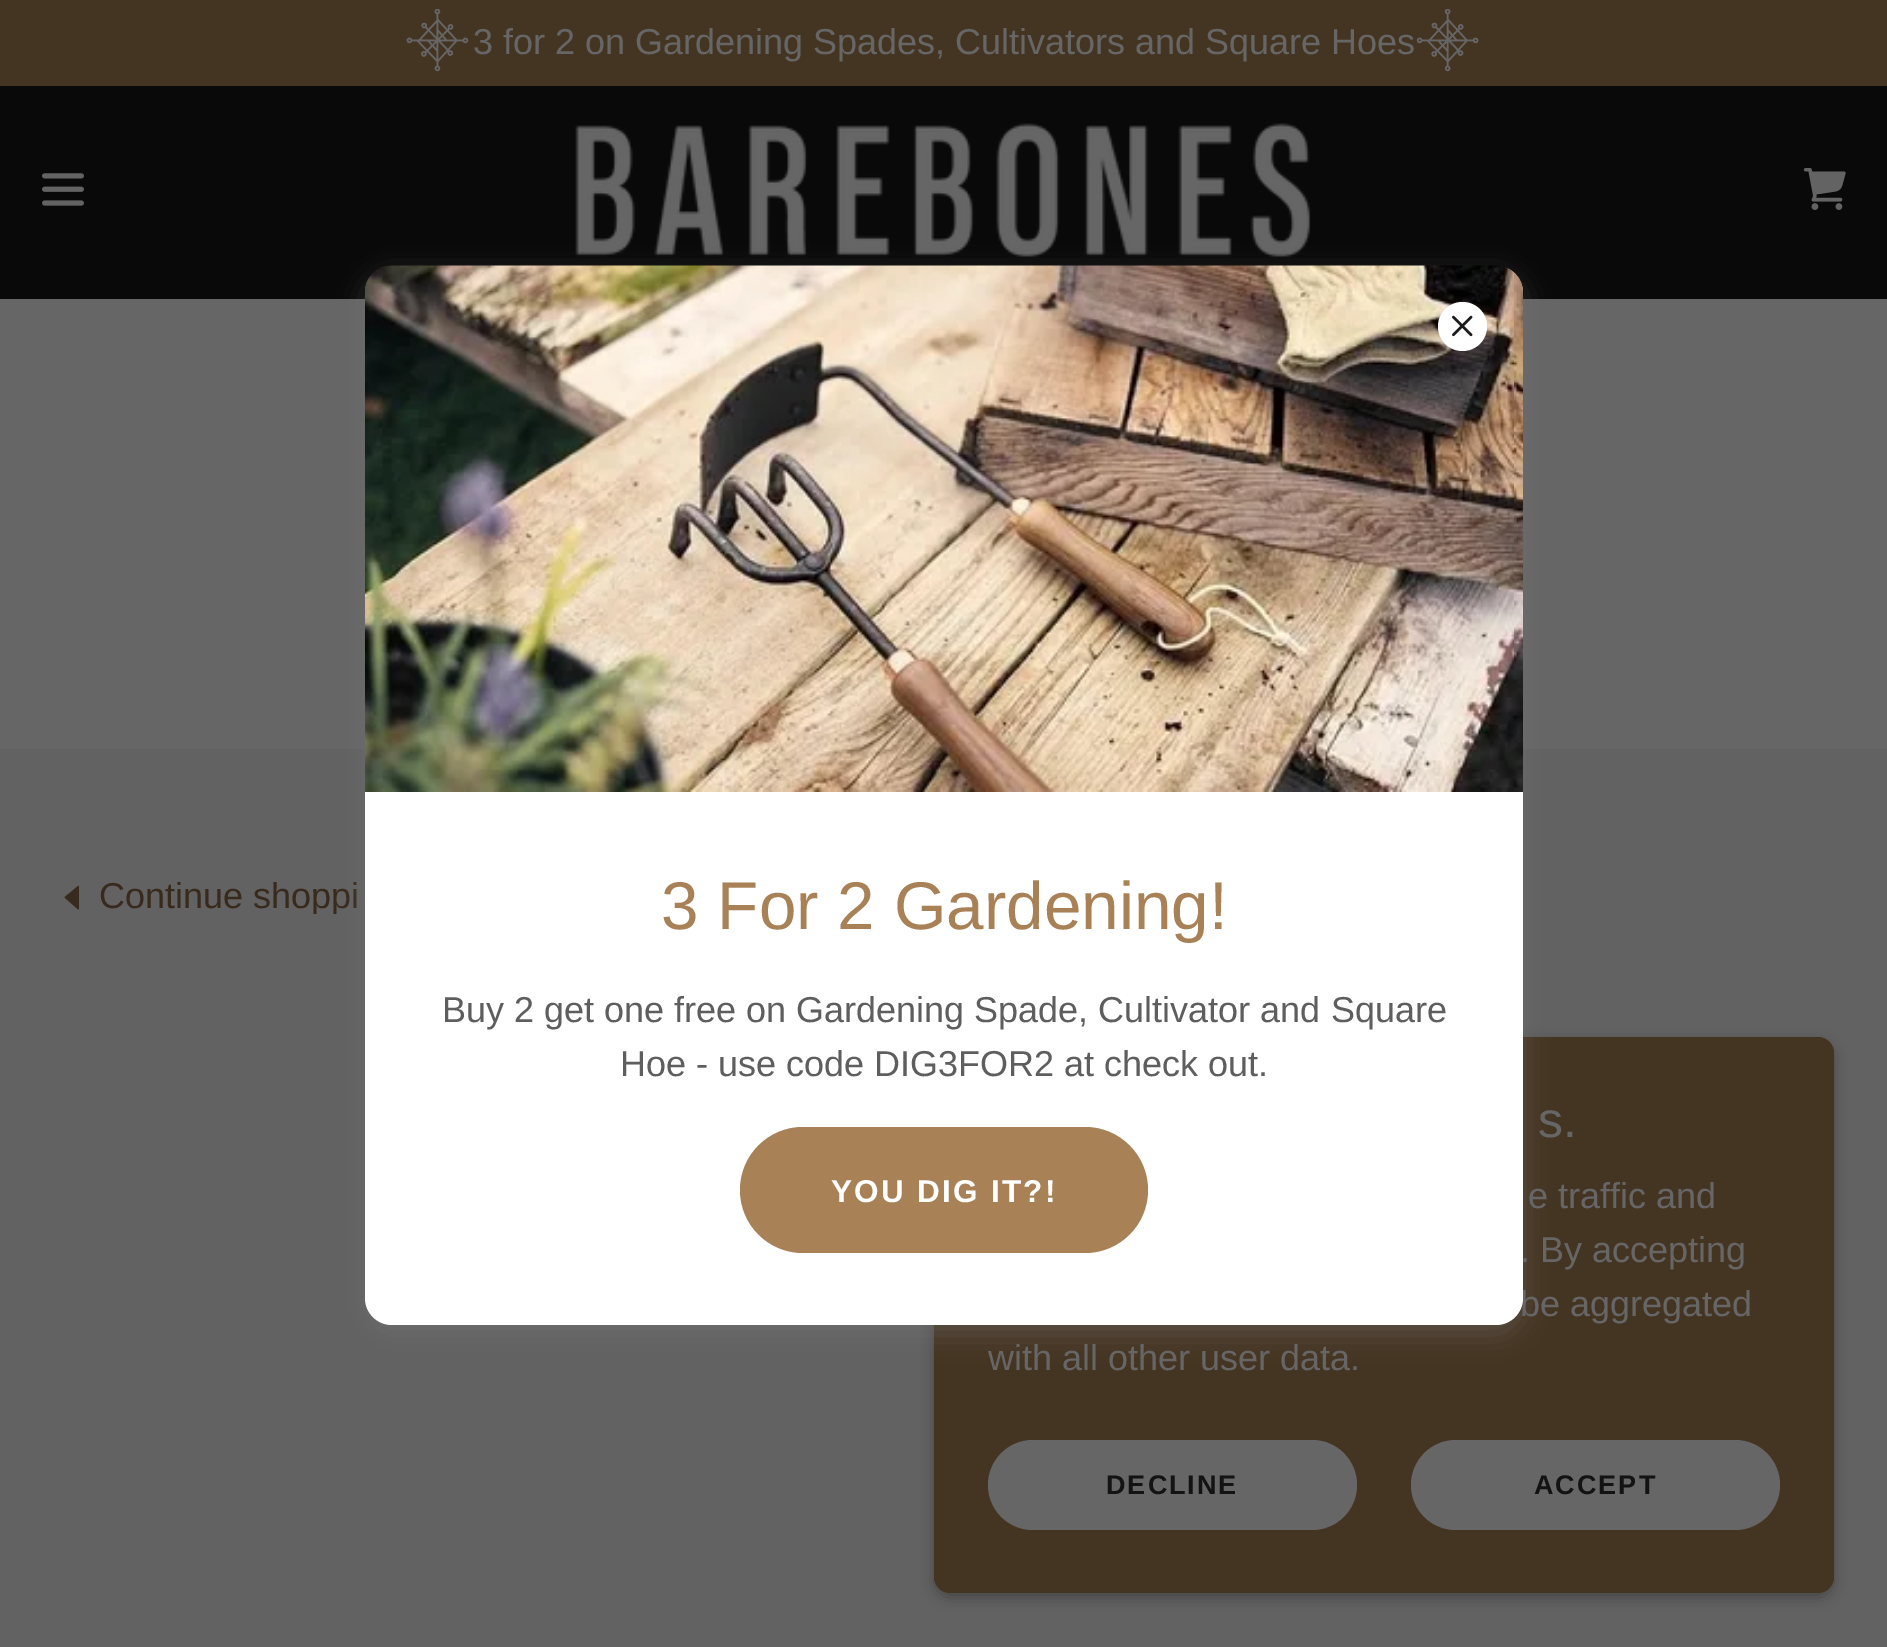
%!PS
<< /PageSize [1887 1647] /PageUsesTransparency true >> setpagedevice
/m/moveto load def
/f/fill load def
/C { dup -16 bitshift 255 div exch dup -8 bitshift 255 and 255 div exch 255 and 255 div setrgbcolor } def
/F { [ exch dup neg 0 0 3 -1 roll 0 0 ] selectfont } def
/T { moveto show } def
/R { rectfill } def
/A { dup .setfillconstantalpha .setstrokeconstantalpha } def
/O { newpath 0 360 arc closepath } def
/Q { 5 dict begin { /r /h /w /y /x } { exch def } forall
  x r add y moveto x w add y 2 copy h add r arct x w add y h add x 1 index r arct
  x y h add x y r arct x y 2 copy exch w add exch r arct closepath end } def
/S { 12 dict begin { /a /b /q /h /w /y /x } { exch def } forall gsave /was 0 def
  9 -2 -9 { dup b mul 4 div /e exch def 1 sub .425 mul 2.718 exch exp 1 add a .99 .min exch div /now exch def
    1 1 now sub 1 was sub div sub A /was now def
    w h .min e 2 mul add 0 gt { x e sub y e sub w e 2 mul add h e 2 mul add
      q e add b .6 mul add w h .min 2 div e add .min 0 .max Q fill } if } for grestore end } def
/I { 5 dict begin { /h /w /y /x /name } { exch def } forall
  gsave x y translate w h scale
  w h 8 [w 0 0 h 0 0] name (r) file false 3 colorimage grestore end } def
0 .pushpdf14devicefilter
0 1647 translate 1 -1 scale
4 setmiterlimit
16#090909 C
0 0 1887 1647 R
16#443422 C
0 0 1887 86 R
(1.rgb) 406 9 63 63 I
/LiberationSans-Regular 36 F
16#666666 C
(3 for 2 on Gardening Spades, Cultivators and Square Hoes) 473 54 T
(2.rgb) 1416 9 63 63 I
(3.rgb) 42 173 42 33 I
(4.rgb) 575 123 736 135 I
(5.rgb) 1803 168 43 42 I
0 299 1887 450 R
16#626262 C
0 749 1887 898 R
(6.rgb) 64 885 16 25 I
16#382A1C C
(Continue shoppi) 99 908 T
16#626262 C
313 914 24 2 R
16#000000 C
934 1042 900 556 16 7 .3 S
16#443422 C
934 1037 900 556 16 Q f
16#757575 C
365 275 1158 1059 27 13.5 .4 S
16#666666 C
(be aggregated) 1520 1316 T
16#FFFFFF C
365 266 1158 1059 27 Q f
(8.rgb) 365 265 1158 527 I
1462.5 326.5 24.5 O f
(7.rgb) 1452 315 21 22 I
/LiberationSans-Regular 67.5 F
16#A98156 C
(3 For 2 Gardening!) 661 929 T
/LiberationSans-Regular 36 F
16#5E5E5E C
(Buy 2 get one free on Gardening Spade, Cultivator and Square) 442 1022 T
(Hoe - use code DIG3FOR2 at check out.) 620 1076 T
16#A98156 C
740 1127 408 126 63 Q f
/LiberationSans-Bold 31.5 F
16#FFFFFF C
831 1202 m 2.25 0 (YOU DIG IT?!) ashow
/LiberationSans-Regular 50 F
16#666666 C
(s.) 1538 1137 T
/LiberationSans-Regular 36 F
(e traffic and) 1528 1208 T
(. By accepting) 1520 1262 T
(with all other user data.) 988 1370 T
988 1440 369 90 45 Q f
/LiberationSans-Bold 27 F
16#131313 C
1106 1494 m 2 0 (DECLINE) ashow
16#666666 C
1411 1440 369 90 45 Q f
16#131313 C
1534 1494 m 2 0 (ACCEPT) ashow
.poppdf14devicefilter showpage
